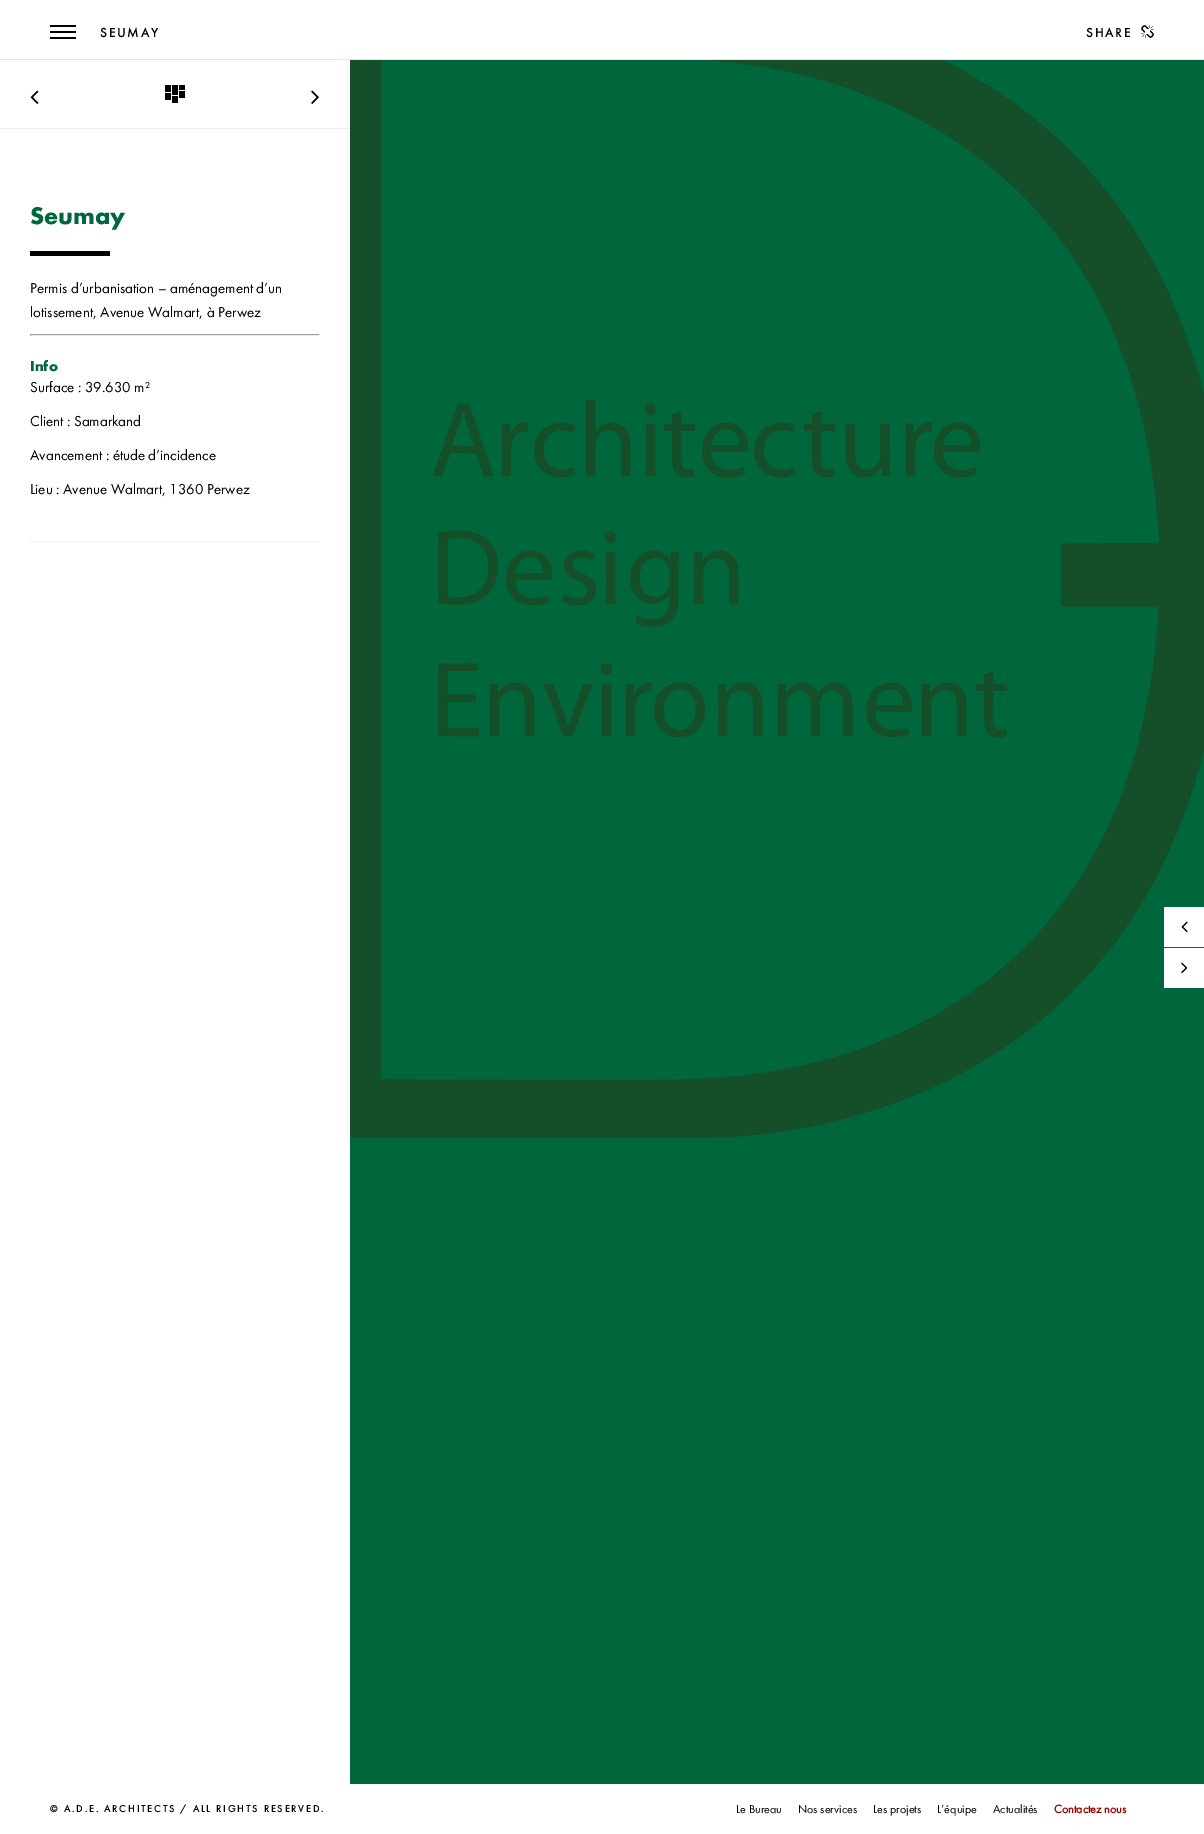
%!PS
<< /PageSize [1204 1834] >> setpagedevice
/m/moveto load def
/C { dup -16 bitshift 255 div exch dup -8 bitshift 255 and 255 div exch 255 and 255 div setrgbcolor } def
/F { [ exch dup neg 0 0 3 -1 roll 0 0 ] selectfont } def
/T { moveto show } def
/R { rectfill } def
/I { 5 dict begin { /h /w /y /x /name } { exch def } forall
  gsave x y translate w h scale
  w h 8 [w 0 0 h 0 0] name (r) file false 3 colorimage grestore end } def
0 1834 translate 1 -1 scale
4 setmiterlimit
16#00673C C
0 0 1204 1834 R
(1.rgb) 350 60 854 1078 I
16#FFFFFF C
0 0 1204 59 R
16#E6E6E6 C
0 59 1204 1 R
16#000000 C
50 25 26 2 R
50 31 26 2 R
50 37 26 2 R
/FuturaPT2-Bold 13 F
100 37 m 2 0 (SEUMAY) ashow
1086 37 m 2 0 (SHARE) ashow
(2.rgb) 1141 25 13 13 I
16#FFFFFF C
0 60 350 1724 R
16#EEEEEE C
0 128 350 1 R
(3.rgb) 30 90 9 14 I
16#000000 C
165 85 6 7 R
172 85 6 10 R
179 85 6 5 R
165 93 6 7 R
172 96 6 7 R
179 91 6 7 R
(4.rgb) 311 90 8 14 I
/FuturaPT-Bold 25 F
16#00673C C
(Seumay) 30 224 T
16#000000 C
30 251 80 5 R
/FuturaPT-Regular 15 F
(Permis d’urbanisation – aménagement d’un) 30 293 T
(lotissement, Avenue Walmart, à Perwez) 30 317 T
16#9F9F9F C
30 334 290 1 R
16#EEEEEE C
319 334 1 2 R
30 335 290 1 R
16#9F9F9F C
30 334 1 2 R
/FuturaPT-Bold 15 F
16#00673C C
(Info) 30 371 T
/FuturaPT-Regular 15 F
16#000000 C
(Surface : 39.630 m²) 30 392 T
(Client : Samarkand) 30 426 T
(Avancement : étude d’incidence) 30 460 T
(Lieu : Avenue Walmart, 1360 Perwez) 30 494 T
16#EEEEEE C
30 541 290 1 R
16#FFFFFF C
1164 907 40 40 R
(5.rgb) 1181 921 7 12 I
1164 948 40 40 R
(6.rgb) 1181 962 7 12 I
0 1784 1204 50 R
/FuturaPT2-Bold 10 F
16#000000 C
50 1812 m 2 0 (© A.D.E. ARCHITECTS / ALL RIGHTS RESERVED.) ashow
/FuturaPT-Regular 12 F
(Le Bureau) 736 1813 T
(Nos services) 798 1813 T
(Les projets) 873 1813 T
(L’équipe) 937 1813 T
(Actualités) 993 1813 T
/FuturaPT2-Bold 12 F
16#990000 C
(Contactez nous) 1054 1813 T
showpage
